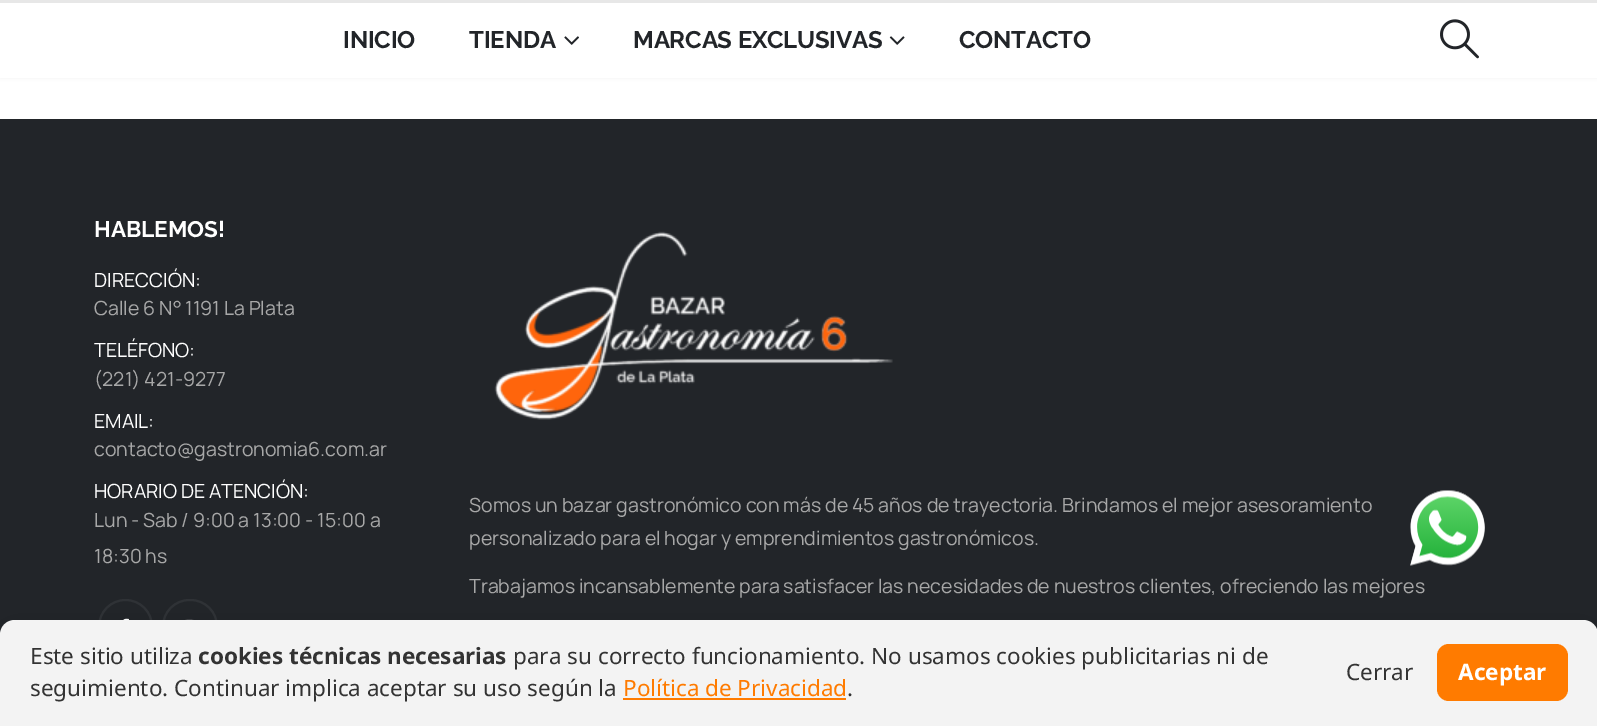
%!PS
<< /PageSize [1597 726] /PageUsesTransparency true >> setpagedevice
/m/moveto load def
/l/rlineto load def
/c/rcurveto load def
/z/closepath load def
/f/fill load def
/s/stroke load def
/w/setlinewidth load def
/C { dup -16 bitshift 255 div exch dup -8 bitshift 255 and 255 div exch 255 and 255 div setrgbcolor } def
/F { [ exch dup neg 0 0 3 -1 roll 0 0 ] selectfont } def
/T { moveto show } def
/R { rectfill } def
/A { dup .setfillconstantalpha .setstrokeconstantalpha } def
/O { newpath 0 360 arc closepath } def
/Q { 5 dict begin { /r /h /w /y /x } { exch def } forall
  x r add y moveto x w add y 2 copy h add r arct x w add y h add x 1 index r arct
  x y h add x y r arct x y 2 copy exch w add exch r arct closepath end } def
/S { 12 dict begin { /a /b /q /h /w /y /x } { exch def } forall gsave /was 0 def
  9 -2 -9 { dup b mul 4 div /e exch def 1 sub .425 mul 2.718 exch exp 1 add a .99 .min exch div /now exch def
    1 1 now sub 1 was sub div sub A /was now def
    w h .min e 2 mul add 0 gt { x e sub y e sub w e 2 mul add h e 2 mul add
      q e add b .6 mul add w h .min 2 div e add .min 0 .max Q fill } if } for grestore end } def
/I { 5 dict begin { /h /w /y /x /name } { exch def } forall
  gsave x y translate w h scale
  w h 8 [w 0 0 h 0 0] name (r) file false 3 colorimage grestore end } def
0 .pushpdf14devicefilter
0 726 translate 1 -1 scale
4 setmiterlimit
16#FFFFFF C
0 0 1597 726 R
16#000000 C
0 0 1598 78 0 2 .06 S
16#FFFFFF C
0 3 1597 75 R
16#E7E7E7 C
0 0 1597 3 R
/Raleway-Bold 24 F
16#222529 C
343 48 m -.2 0 (INICIO) ashow
469 48 m -.2 0 (TIENDA) ashow
(1.rgb) 564 36 15 9 I
633 48 m -.2 0 (MARCAS EXCLUSIVAS) ashow
(2.rgb) 889 36 16 9 I
959 48 m -.2 0 (CONTACTO) ashow
(3.rgb) 1440 19 39 40 I
0 119 1597 516 R
/Raleway-Bold 22.5 F
16#FFFFFF C
(HABLEMOS!) 94 237 T
/Manrope-Regular 19.5 F
(DIRECCIÓN:) 94 287 T
16#A8A8A8 C
(Calle 6 N° 1191 La Plata) 94 315 T
16#FFFFFF C
(TELÉFONO:) 94 357 T
16#A8A8A8 C
(\(221\) 421-9277) 94 386 T
16#FFFFFF C
(EMAIL:) 94 428 T
16#A8A8A8 C
(contacto@gastronomia6.com.ar) 94 456 T
16#FFFFFF C
(HORARIO DE ATENCIÓN:) 94 498 T
16#A8A8A8 C
(Lun - Sab / 9:00 a 13:00 - 15:00 a) 94 527 T
(18:30 hs) 94 563 T
16#2F3236 C
2 w
125.5 626.5 26.5 O s
(4.rgb) 123 618 6 2 I
163 600 54 53 26.5 Q s
(5.rgb) 185 619 9 1 I
(6.rgb) 494 231 399 189 I
16#A8A8A8 C
(Somos un bazar gastronómico con más de 45 años de trayectoria. Brindamos el mejor asesoramiento) 469 512 T
(personalizado para el hogar y emprendimientos gastronómicos.) 469 545 T
(Trabajamos incansablemente para satisfacer las necesidades de nuestros clientes, ofreciendo las mejores) 469 593 T
(7.rgb) 1410 490 75 76 I
16#000000 C
0 635 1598 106 15 18 .18 S
16#F3F3F3 C
15 620 m 1568 0 l 8.5 0 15 6.5 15 15 c 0 91 l -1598 0 l 0 -91 l 0 -8.5 6.5 -15 15 -15 c z f
/NotoSans-Regular 22.5 F
16#333333 C
(Este sitio utiliza) 30 664 T
/NotoSans-Bold 22.5 F
(cookies técnicas necesarias) 198 664 T
/NotoSans-Regular 22.5 F
(para su correcto funcionamiento. No usamos cookies publicitarias ni de) 513 664 T
(seguimiento. Continuar implica aceptar su uso según la) 30 696 T
16#FF7B00 C
(Política de Privacidad) 623 696 T
623 698 223 2 R
16#333333 C
(.) 847 696 T
(Cerrar) 1346 680 T
16#FF7B00 C
1437 644 131 57 12 Q f
/NotoSans-Bold 22.5 F
16#FFFFFF C
(Aceptar) 1458 680 T
.poppdf14devicefilter showpage
